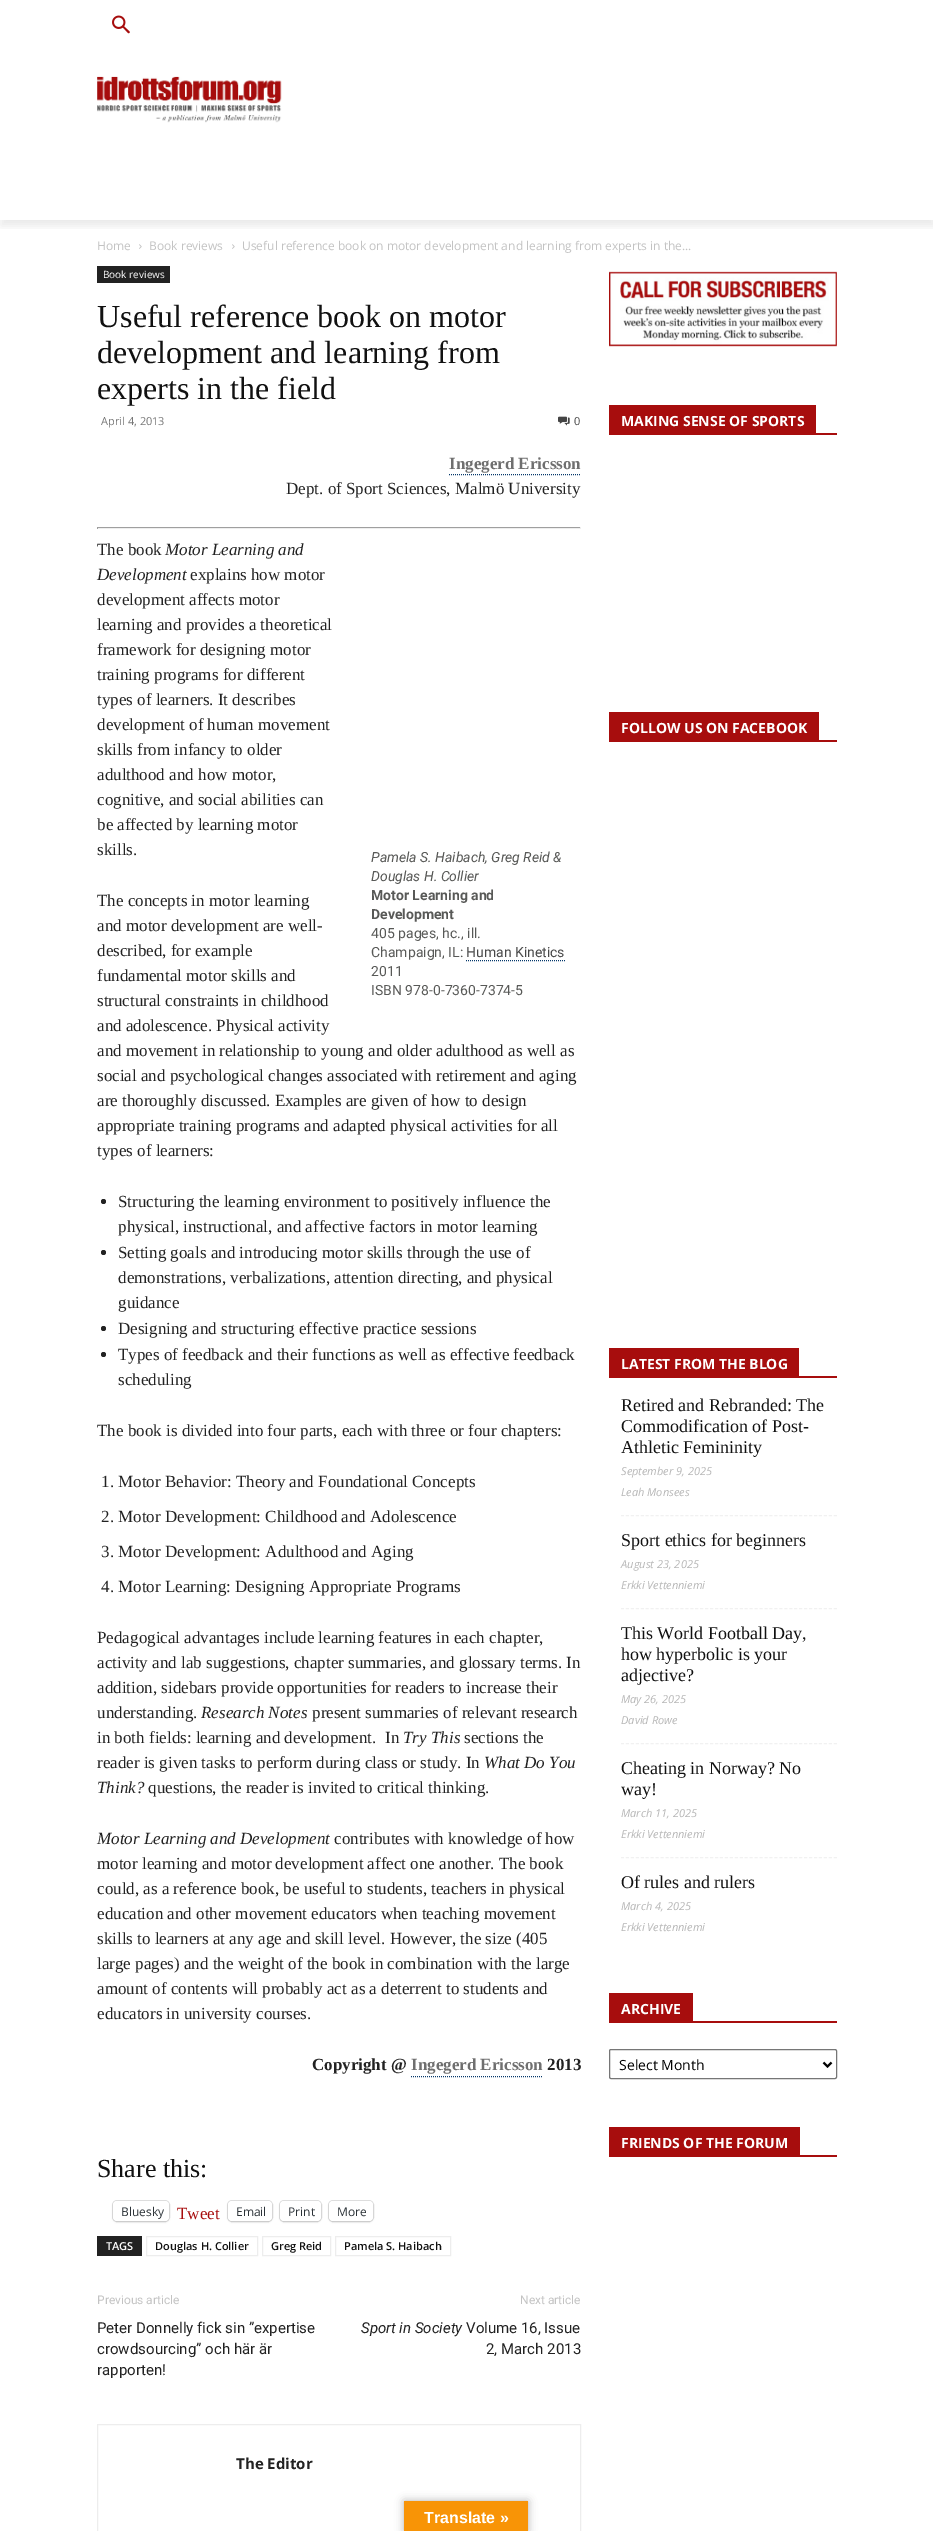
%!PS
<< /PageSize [933 2531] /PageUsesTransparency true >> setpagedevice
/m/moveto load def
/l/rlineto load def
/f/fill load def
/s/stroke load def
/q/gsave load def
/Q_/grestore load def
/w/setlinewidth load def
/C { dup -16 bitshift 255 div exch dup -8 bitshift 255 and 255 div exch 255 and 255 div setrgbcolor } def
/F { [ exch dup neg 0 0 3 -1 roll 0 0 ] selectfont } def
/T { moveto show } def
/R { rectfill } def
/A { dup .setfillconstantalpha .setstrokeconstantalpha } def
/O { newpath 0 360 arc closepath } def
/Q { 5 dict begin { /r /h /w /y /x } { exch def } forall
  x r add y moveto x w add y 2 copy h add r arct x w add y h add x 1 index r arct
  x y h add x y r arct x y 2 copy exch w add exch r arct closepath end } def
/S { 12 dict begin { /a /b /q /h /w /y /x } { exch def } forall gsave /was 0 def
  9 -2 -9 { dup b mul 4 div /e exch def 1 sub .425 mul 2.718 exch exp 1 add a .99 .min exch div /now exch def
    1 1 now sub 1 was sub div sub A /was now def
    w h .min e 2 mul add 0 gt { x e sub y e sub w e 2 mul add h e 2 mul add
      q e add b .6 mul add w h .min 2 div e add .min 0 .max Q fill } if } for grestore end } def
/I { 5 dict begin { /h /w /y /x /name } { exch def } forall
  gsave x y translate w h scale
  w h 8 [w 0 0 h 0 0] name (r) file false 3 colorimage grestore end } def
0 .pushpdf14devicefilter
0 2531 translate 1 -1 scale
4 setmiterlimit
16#FFFFFF C
0 0 933 2531 R
(1.rgb) 112 15 18 19 I
(2.rgb) 97 76 185 47 I
q
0 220 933 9 rectclip
16#000000 C
1 145 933 81 0 4 .08 S
Q_
/OpenSans-Regular 12 F
16#C3C3C3 C
(Home) 97 250 T
(3.rgb) 139 244 3 5 I
(Book reviews) 149 250 T
(3.rgb) 232 244 3 5 I
(Useful reference book on motor development and learning from experts in the...) 242 250 T
16#222222 C
97 266 73 17 R
/OpenSans-Regular 10 F
16#FFFFFF C
(Book reviews) 103 278 T
/LiberationSerif-Regular 32 F
16#111111 C
(Useful reference book on motor) 97 327 T
(development and learning from) 97 363 T
(experts in the field) 97 399 T
/OpenSans-Regular 11 F
16#767676 C
(April 4, 2013) 101 425 T
(4.rgb) 558 416 12 10 I
16#484848 C
(0) 574 425 T
/LiberationSerif-Bold 17 F
16#6F6F6F C
(Ingegerd Ericsson) 449 469 T
16#05386B C
[1 1] 0 setdash
449 474.5 m 132 0 l s
/LiberationSerif-Regular 17 F
16#222222 C
(Dept. of Sport Sciences, Malmö University) 286 494 T
16#9F9F9F C
97 527 484 1 R
16#EEEEEE C
580 527 1 2 R
97 528 484 1 R
16#9F9F9F C
97 527 1 2 R
16#222222 C
(The book) 97 555 T
/LiberationSerif-Italic 17 F
(Motor Learning and) 165 555 T
(Development) 97 580 T
/LiberationSerif-Regular 17 F
(explains how motor) 190 580 T
(development affects motor) 97 605 T
(learning and provides a theoretical) 97 630 T
(framework for designing motor) 97 655 T
(training programs for different) 97 680 T
(types of learners. It describes) 97 705 T
(development of human movement) 97 730 T
(skills from infancy to older) 97 755 T
(adulthood and how motor,) 97 780 T
(cognitive, and social abilities can) 97 805 T
(be affected by learning motor) 97 830 T
(skills.) 97 855 T
/Roboto-Italic 14 F
16#585957 C
(Pamela S. Haibach, Greg Reid &) 371 862 T
(Douglas H. Collier) 371 881 T
/Roboto-Bold 14 F
(Motor Learning and) 371 900 T
(Development) 371 919 T
/Roboto-Regular 14 F
(405 pages, hc., ill.) 371 938 T
(Champaign, IL:) 371 957 T
16#484848 C
(Human Kinetics) 466 957 T
16#05386B C
466 960.5 m 99 0 l s
16#585957 C
(2011) 371 976 T
(ISBN 978-0-7360-7374-5) 371 995 T
/LiberationSerif-Regular 17 F
16#222222 C
(The concepts in motor learning) 97 906 T
(and motor development are well-) 97 931 T
(described, for example) 97 956 T
(fundamental motor skills and) 97 981 T
(structural constraints in childhood) 97 1006 T
(and adolescence. Physical activity) 97 1031 T
(and movement in relationship to young and older adulthood as well as) 97 1056 T
(social and psychological changes associated with retirement and aging) 97 1081 T
(are thoroughly discussed. Examples are given of how to design) 97 1106 T
(appropriate training programs and adapted physical activities for all) 97 1131 T
(types of learners:) 97 1156 T
103.5 1201.5 2.5 O f
(Structuring the learning environment to positively influence the) 118 1207 T
(physical, instructional, and affective factors in motor learning) 118 1232 T
103.5 1252.5 2.5 O f
(Setting goals and introducing motor skills through the use of) 118 1258 T
(demonstrations, verbalizations, attention directing, and physical) 118 1283 T
(guidance) 118 1308 T
103.5 1328.5 2.5 O f
(Designing and structuring effective practice sessions) 118 1334 T
103.5 1354.5 2.5 O f
(Types of feedback and their functions as well as effective feedback) 118 1360 T
(scheduling) 118 1385 T
(The book is divided into four parts, each with three or four chapters:) 97 1436 T
(1. Motor Behavior: Theory and Foundational Concepts) 101 1487 T
(2. Motor Development: Childhood and Adolescence) 101 1522 T
(3. Motor Development: Adulthood and Aging) 101 1557 T
(4. Motor Learning: Designing Appropriate Programs) 101 1592 T
(Pedagogical advantages include learning features in each chapter,) 97 1643 T
(activity and lab suggestions, chapter summaries, and glossary terms. In) 97 1668 T
(addition, sidebars provide opportunities for readers to increase their) 97 1693 T
(understanding.) 97 1718 T
/LiberationSerif-Italic 17 F
(Research Notes) 201 1718 T
/LiberationSerif-Regular 17 F
(present summaries of relevant research) 312 1718 T
(in both fields: learning and development.  In) 97 1743 T
/LiberationSerif-Italic 17 F
(Try This) 403 1743 T
/LiberationSerif-Regular 17 F
(sections the) 464 1743 T
(reader is given tasks to perform during class or study. In) 97 1768 T
/LiberationSerif-Italic 17 F
(What Do You) 484 1768 T
(Think?) 97 1793 T
/LiberationSerif-Regular 17 F
(questions, the reader is invited to critical thinking.) 148 1793 T
/LiberationSerif-Italic 17 F
(Motor Learning and Development) 97 1844 T
/LiberationSerif-Regular 17 F
(contributes with knowledge of how) 334 1844 T
(motor learning and motor development affect one another. The book) 97 1869 T
(could, as a reference book, be useful to students, teachers in physical) 97 1894 T
(education and other movement educators when teaching movement) 97 1919 T
(skills to learners at any age and skill level. However, the size \(405) 97 1944 T
(large pages\) and the weight of the book in combination with the large) 97 1969 T
(amount of contents will probably act as a deterrent to students and) 97 1994 T
(educators in university courses.) 97 2019 T
/LiberationSerif-Bold 17 F
(Copyright @) 312 2070 T
16#6F6F6F C
(Ingegerd Ericsson) 411 2070 T
16#05386B C
411 2076.5 m 131 0 l s
16#222222 C
(2013) 547 2070 T
/LiberationSerif-Regular 26 F
16#111111 C
(Share this:) 97 2177 T
16#E0E0E0 C
[] 0 setdash
112.5 2200.5 57 21 4.5 Q s
16#000000 C
113 2202 56 20 4 1 .12 S
16#FFFFFF C
113 2201 56 20 4 Q f
/OpenSans-Regular 12 F
16#2C3338 C
(Bluesky) 121 2216 T
/LiberationSerif-Regular 17 F
16#A70D0D C
(Tweet) 177 2219 T
16#E0E0E0 C
227.5 2200.5 45 21 4.5 Q s
16#000000 C
228 2202 44 20 4 1 .12 S
16#FFFFFF C
228 2201 44 20 4 Q f
/OpenSans-Regular 12 F
16#2C3338 C
(Email) 236 2216 T
16#E0E0E0 C
279.5 2200.5 42 21 4.5 Q s
16#000000 C
280 2202 41 20 4 1 .12 S
16#FFFFFF C
280 2201 41 20 4 Q f
16#2C3338 C
(Print) 288 2216 T
16#E0E0E0 C
328.5 2200.5 45 21 4.5 Q s
16#000000 C
329 2202 44 20 4 1 .12 S
16#FFFFFF C
329 2201 44 20 4 Q f
16#2C3338 C
(More) 337 2216 T
16#222222 C
97 2236 45 20 R
/OpenSans-SemiBold 11 F
16#FFFFFF C
(TAGS) 106 2250 T
16#EDEDED C
146.5 2236.5 111 19 rectstroke
16#111111 C
(Douglas H. Collier) 155 2250 T
16#EDEDED C
262.5 2236.5 68 19 rectstroke
16#111111 C
(Greg Reid) 271 2250 T
16#EDEDED C
335.5 2236.5 115 19 rectstroke
16#111111 C
(Pamela S. Haibach) 344 2250 T
/Roboto-Regular 12 F
16#C3C3C3 C
(Previous article) 97 2304 T
/Roboto-Regular 15 F
16#222222 C
(Peter Donnelly fick sin ”expertise) 97 2333 T
(crowdsourcing” och här är) 97 2354 T
(rapporten!) 97 2375 T
/Roboto-Regular 12 F
16#C3C3C3 C
(Next article) 520 2304 T
/Roboto-Italic 15 F
16#222222 C
(Sport in Society) 361 2333 T
/Roboto-Regular 15 F
(Volume 16, Issue) 466 2333 T
(2, March 2013) 486 2354 T
16#EDEDED C
97.5 2424.5 483 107 rectstroke
/OpenSans-Bold 15 F
16#222222 C
(The Editor) 236 2469 T
(5.rgb) 609 271 228 76 I
16#A70D0D C
609 433 228 2 R
609 405 207 28 R
/OpenSans-Bold 14 F
16#FFFFFF C
(MAKING SENSE OF SPORTS) 621 426 T
16#A70D0D C
609 740 228 2 R
609 712 210 28 R
16#FFFFFF C
(FOLLOW US ON FACEBOOK) 621 733 T
16#A70D0D C
609 1376 228 2 R
609 1348 190 28 R
16#FFFFFF C
(LATEST FROM THE BLOG) 621 1369 T
16#F1F1F1 C
[3 1.95] 0 setdash
621 1515.5 m 216 0 l s
/LiberationSerif-Regular 18 F
16#111111 C
(Retired and Rebranded: The) 621 1411 T
(Commodification of Post-) 621 1432 T
(Athletic Femininity) 621 1453 T
/OpenSans-Italic 11 F
16#B5B5B5 C
(September 9, 2025) 621 1475 T
(Leah Monsees) 621 1496 T
16#F1F1F1 C
621 1608.5 m 216 0 l s
/LiberationSerif-Regular 18 F
16#111111 C
(Sport ethics for beginners) 621 1546 T
/OpenSans-Italic 11 F
16#B5B5B5 C
(August 23, 2025) 621 1568 T
(Erkki Vettenniemi) 621 1589 T
16#F1F1F1 C
621 1743.5 m 216 0 l s
/LiberationSerif-Regular 18 F
16#111111 C
(This World Football Day,) 621 1639 T
(how hyperbolic is your) 621 1660 T
(adjective?) 621 1681 T
/OpenSans-Italic 11 F
16#B5B5B5 C
(May 26, 2025) 621 1703 T
(David Rowe) 621 1724 T
16#F1F1F1 C
621 1857.5 m 216 0 l s
/LiberationSerif-Regular 18 F
16#111111 C
(Cheating in Norway? No) 621 1774 T
(way!) 621 1795 T
/OpenSans-Italic 11 F
16#B5B5B5 C
(March 11, 2025) 621 1817 T
(Erkki Vettenniemi) 621 1838 T
/LiberationSerif-Regular 18 F
16#111111 C
(Of rules and rulers) 621 1888 T
/OpenSans-Italic 11 F
16#B5B5B5 C
(March 4, 2025) 621 1910 T
(Erkki Vettenniemi) 621 1931 T
16#A70D0D C
609 2021 228 2 R
609 1993 84 28 R
/OpenSans-Bold 14 F
16#FFFFFF C
(ARCHIVE) 621 2014 T
16#767676 C
[] 0 setdash
609.5 2049.5 227 29 1.5 Q s
16#000000 C
2 w
823.5 2062.5 m 4 4 l 4 -4 l s
/OpenSans-Regular 14 F
(Select Month) 619 2070 T
16#A70D0D C
609 2155 228 2 R
609 2127 191 28 R
/OpenSans-Bold 14 F
16#FFFFFF C
(FRIENDS OF THE FORUM) 621 2148 T
16#000000 C
404 2501 124 30 0 4.5 .3 S
16#F89406 C
404 2501 124 30 R
/LiberationSans-Bold 16 F
16#FFFFFF C
(Translate ») 424 2523 T
.poppdf14devicefilter showpage
